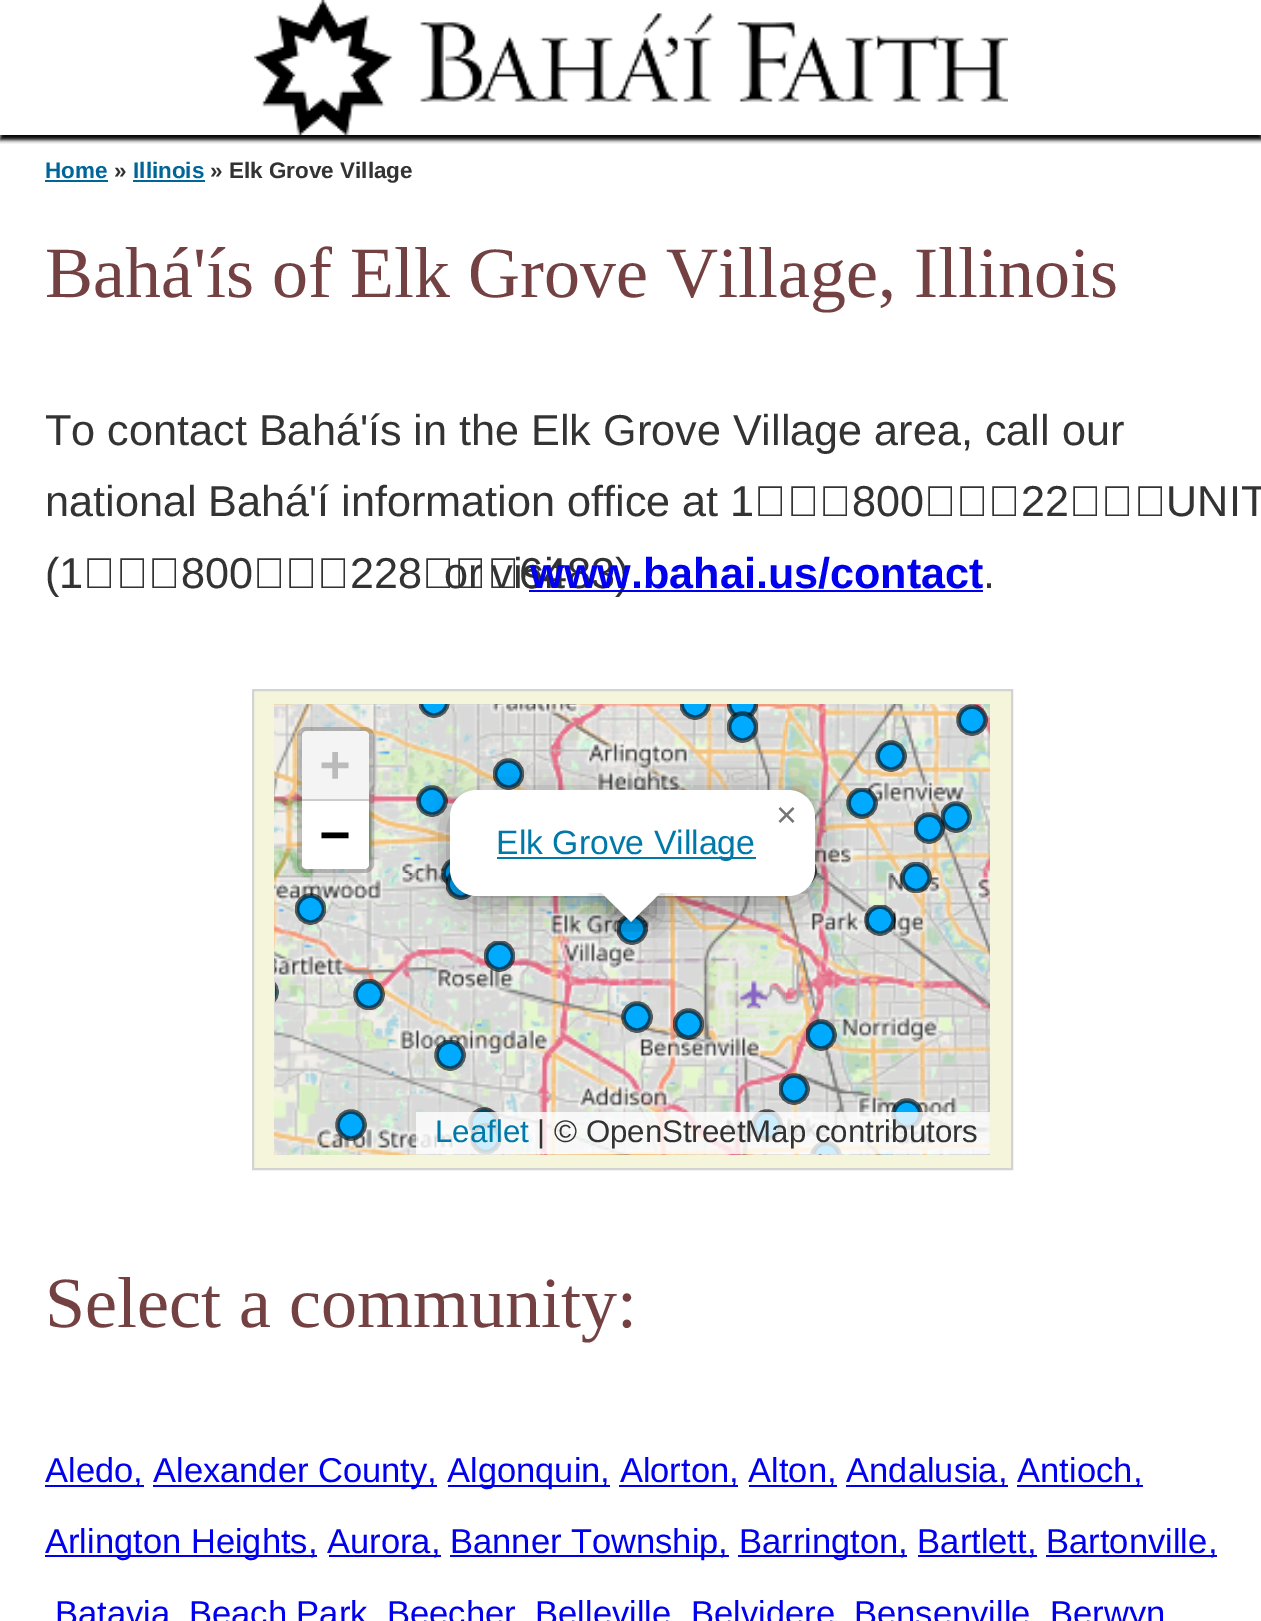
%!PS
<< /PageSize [1261 1621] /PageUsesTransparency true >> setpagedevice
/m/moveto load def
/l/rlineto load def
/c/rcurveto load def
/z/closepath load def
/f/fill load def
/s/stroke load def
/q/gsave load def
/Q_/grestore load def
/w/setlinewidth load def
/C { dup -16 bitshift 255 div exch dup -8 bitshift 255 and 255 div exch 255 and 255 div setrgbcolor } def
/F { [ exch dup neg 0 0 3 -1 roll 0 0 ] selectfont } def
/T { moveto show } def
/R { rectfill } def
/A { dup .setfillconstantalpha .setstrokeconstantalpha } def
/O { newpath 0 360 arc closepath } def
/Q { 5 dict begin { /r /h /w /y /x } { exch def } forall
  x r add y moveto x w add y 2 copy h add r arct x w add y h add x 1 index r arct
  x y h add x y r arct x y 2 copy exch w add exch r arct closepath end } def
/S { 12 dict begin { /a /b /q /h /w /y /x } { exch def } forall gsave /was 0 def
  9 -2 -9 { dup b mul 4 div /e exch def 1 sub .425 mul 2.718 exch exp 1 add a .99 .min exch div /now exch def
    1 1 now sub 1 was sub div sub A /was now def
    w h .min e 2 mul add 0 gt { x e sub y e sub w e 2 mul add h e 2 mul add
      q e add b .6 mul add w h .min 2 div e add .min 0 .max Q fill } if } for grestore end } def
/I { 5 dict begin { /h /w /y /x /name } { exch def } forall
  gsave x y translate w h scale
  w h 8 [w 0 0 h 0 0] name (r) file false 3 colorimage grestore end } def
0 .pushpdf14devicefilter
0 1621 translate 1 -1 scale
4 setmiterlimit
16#FFFFFF C
0 0 1261 1621 R
q
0 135 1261 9 rectclip
16#000000 C
0 5 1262 135 0 2 1 S
Q_
(1.rgb) 254 0 754 135 I
/LiberationSans-Bold 22.5 F
16#006699 C
(Home) 45 178 T
45 180 63 2 R
16#333333 C
(») 114 178 T
16#006699 C
(Illinois) 133 178 T
133 180 72 2 R
16#333333 C
(» Elk Grove Village) 210 178 T
/LiberationSerif-Regular 72 F
16#734142 C
(Bahá'ís of Elk Grove Village, Illinois) 45 297 T
/LiberationSans-Regular 43.2 F
16#333333 C
(To contact Bahá'ís in the) 45 445 T
(Elk Grove Village area, call our) 531 445 T
(national Bahá'í information office at 1‑800‑22‑UNITE) 45 516 T
(\(1‑800‑228‑6483\)) 45 588 T
(or) 444 588 T
(visit) 491 588 T
/LiberationSans-Bold 43.2 F
16#0000EE C
(www.bahai.us/contact) 530 588 T
529 590 454 2 R
/LiberationSans-Regular 43.2 F
16#333333 C
(.) 983 588 T
16#F5F5DC C
253 690 m 759 0 l 0 479 l -759 0 l z q f Q_
16#D3D3D3 C
2 w
s
(2.rgb) 274 704 512 169 I
0.2 A
16#000000 C
5 w
299.5 729.5 72 141 6.5 Q s
1 A
16#F4F4F4 C
307 731 m 57 0 l 3 0 5 2 5 5 c 0 65 l -67 0 l 0 -65 l 0 -3 2 -5 5 -5 c z f
16#CCCCCC C
302 799 67 2 R
/DejaVuSansMono-Bold 50 F
16#BBBBBB C
(+) 320 781 T
16#FFFFFF C
302 801 m 67 0 l 0 63 l 0 3 -2 5 -5 5 c -57 0 l -3 0 -5 -2 -5 -5 c z f
16#000000 C
(−) 320 851 T
(4.rgb) 274 873 512 282 I
(5.rgb) 785 873 205 282 I
16#00AAFF C
484 1123 13.5 O f
0.6 A
16#000000 C
4.5 w
484 1123 13.5 O s
1 A
16#00AAFF C
767 1125 13.5 O f
q
752 1109 31 32 rectclip
0.6 A
16#000000 C
767 1125 13.5 O s
Q_
907 1114 13.5 O f
0.6 A
16#000000 C
907 1114 13.5 O s
1 A
16#00AAFF C
486 1138.5 13.5 O f
q
470 1123 32 31 rectclip
0.6 A
16#000000 C
486 1138.5 13.5 O s
Q_
q
810 1141 32 13 rectclip
826 1156.5 13.5 O f
0.6 A
16#000000 C
826 1156.5 13.5 O s
Q_
0.8 A
16#FFFFFF C
416 1112 574 42 R
/LiberationSans-Regular 31.25 F
1 A
16#0078A8 C
(Leaflet) 435 1142 T
16#333333 C
(| © OpenStreetMap contributors) 537 1142 T
(3.rgb) 785 704 205 169 I
q
419 704 31 14 rectclip
16#00AAFF C
434 702 13.5 O f
0.6 A
16#000000 C
434 702 13.5 O s
Q_
q
680 704 31 16 rectclip
16#00AAFF C
695 704 13.5 O f
0.6 A
16#000000 C
695 704 13.5 O s
Q_
q
727 704 31 16 rectclip
16#00AAFF C
742.5 704 13.5 O f
0.6 A
16#000000 C
742.5 704 13.5 O s
Q_
16#00AAFF C
972 720 13.5 O f
0.6 A
16#000000 C
972 720 13.5 O s
1 A
16#00AAFF C
742.5 727 13.5 O f
q
727 711 31 32 rectclip
0.6 A
16#000000 C
742.5 727 13.5 O s
Q_
508.5 774 13.5 O f
q
493 758 31 32 rectclip
0.6 A
16#000000 C
508.5 774 13.5 O s
Q_
891 756 13.5 O f
0.6 A
16#000000 C
891 756 13.5 O s
1 A
16#00AAFF C
432 801 13.5 O f
0.6 A
16#000000 C
432 801 13.5 O s
1 A
16#00AAFF C
862 803 13.5 O f
q
846 788 32 31 rectclip
0.6 A
16#000000 C
862 803 13.5 O s
Q_
956 817 13.5 O f
q
941 801 31 32 rectclip
0.6 A
16#000000 C
956 817 13.5 O s
Q_
929 828 13.5 O f
q
914 812 31 32 rectclip
0.6 A
16#000000 C
929 828 13.5 O s
Q_
457 873 13.5 O f
0.6 A
16#000000 C
457 873 13.5 O s
801 871 13.5 O s
1 A
16#00AAFF C
916 877.5 13.5 O f
q
900 862 32 31 rectclip
0.6 A
16#000000 C
916 877.5 13.5 O s
Q_
461 884 13.5 O f
q
446 869 31 31 rectclip
0.6 A
16#000000 C
461 884 13.5 O s
Q_
310.5 909 13.5 O f
q
295 893 31 32 rectclip
0.6 A
16#000000 C
310.5 909 13.5 O s
Q_
632 929 13.5 O f
q
617 914 31 31 rectclip
0.6 A
16#000000 C
632 929 13.5 O s
Q_
880 920 13.5 O f
q
864 905 32 31 rectclip
0.6 A
16#000000 C
880 920 13.5 O s
Q_
499.5 956 13.5 O f
q
484 941 31 31 rectclip
0.6 A
16#000000 C
499.5 956 13.5 O s
Q_
q
275 977 4 31 rectclip
263 992 13.5 O f
0.6 A
16#000000 C
263 992 13.5 O s
Q_
369 994.5 13.5 O f
q
353 979 32 31 rectclip
0.6 A
16#000000 C
369 994.5 13.5 O s
Q_
637 1017 13.5 O f
0.6 A
16#000000 C
637 1017 13.5 O s
1 A
16#00AAFF C
688.5 1024 13.5 O f
q
673 1008 31 32 rectclip
0.6 A
16#000000 C
688.5 1024 13.5 O s
Q_
821 1035 13.5 O f
q
806 1019 31 32 rectclip
0.6 A
16#000000 C
821 1035 13.5 O s
Q_
450 1055 13.5 O f
q
434 1040 32 31 rectclip
0.6 A
16#000000 C
450 1055 13.5 O s
Q_
794 1089 13.5 O f
q
779 1073 31 32 rectclip
0.6 A
16#000000 C
794 1089 13.5 O s
Q_
351 1125 13.5 O f
0.6 A
16#000000 C
351 1125 13.5 O s
1 A
450 797 365 105 27 16 .4 S
16#FFFFFF C
450 790 365 106 27 Q f
/LiberationSans-Regular 36 F
16#757575 C
(×) 776 827 T
16#0078A8 C
497 857 259 2 R
/LiberationSans-Regular 33.75 F
(Elk Grove Village) 496 854 T
q
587 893 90 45 rectclip
16#000000 C
610 878 43 42 0 16 .4 S
Q_
q
587 893 90 45 rectclip
16#FFFFFF C
631 862 m 30 30 l -30 30 l -30 -30 l z f
Q_
/LiberationSerif-Regular 72 F
16#734142 C
(Select a community:) 45 1327 T
16#0000EE C
45 1485 99 2 R
/LiberationSans-Regular 34.5 F
(Aledo,) 45 1482 T
153 1485 284 2 R
(Alexander County,) 153 1482 T
448 1485 162 2 R
(Algonquin, Alorton) 447 1482 T
619 1485 119 2 R
(, Alton) 729 1482 T
749 1485 88 2 R
(, Andalusia) 827 1482 T
846 1485 162 2 R
(, Antioch) 998 1482 T
1017 1485 126 2 R
(,) 1133 1482 T
45 1555 272 2 R
(Arlington Heights, Aurora) 45 1553 T
329 1555 112 2 R
(,) 431 1553 T
450 1555 279 2 R
(Banner Township,) 450 1553 T
738 1555 169 2 R
(Barrington, Bartlett) 739 1553 T
918 1555 119 2 R
(, Bartonville) 1027 1553 T
1046 1555 171 2 R
(,) 1208 1553 T
(Batavia) 55 1625 T
(Beach Park) 189 1625 T
(Beecher) 387 1625 T
(Belleville) 535 1625 T
(Belvidere) 691 1625 T
(Bensenville) 854 1625 T
(Berwyn) 1050 1625 T
.poppdf14devicefilter showpage
